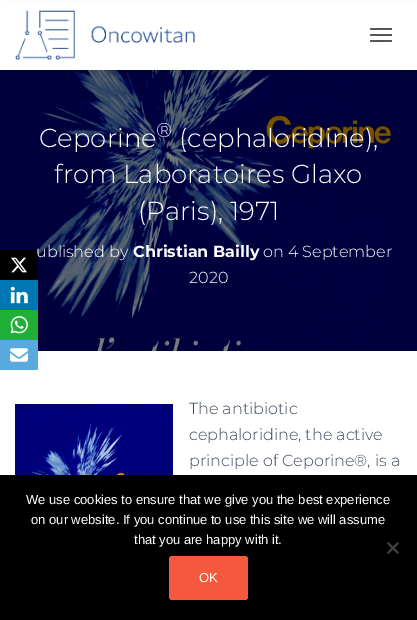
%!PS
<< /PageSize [417 620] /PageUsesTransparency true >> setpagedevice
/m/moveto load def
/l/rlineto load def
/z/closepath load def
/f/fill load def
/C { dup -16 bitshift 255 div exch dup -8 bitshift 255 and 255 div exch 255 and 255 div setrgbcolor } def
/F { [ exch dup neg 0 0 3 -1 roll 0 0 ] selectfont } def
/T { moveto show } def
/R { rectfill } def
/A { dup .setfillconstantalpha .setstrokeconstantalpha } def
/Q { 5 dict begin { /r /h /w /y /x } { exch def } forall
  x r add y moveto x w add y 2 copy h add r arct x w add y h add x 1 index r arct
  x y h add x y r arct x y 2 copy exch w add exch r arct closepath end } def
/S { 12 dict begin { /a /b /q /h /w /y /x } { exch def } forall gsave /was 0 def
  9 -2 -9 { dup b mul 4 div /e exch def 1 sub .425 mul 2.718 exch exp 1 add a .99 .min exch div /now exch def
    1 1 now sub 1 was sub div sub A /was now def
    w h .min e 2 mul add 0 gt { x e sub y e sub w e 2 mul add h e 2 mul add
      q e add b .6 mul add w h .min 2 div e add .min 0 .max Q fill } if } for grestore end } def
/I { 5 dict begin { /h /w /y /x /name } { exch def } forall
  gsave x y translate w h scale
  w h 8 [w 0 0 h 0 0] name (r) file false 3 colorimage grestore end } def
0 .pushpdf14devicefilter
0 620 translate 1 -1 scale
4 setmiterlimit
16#FFFFFF C
0 0 417 620 R
(6.rgb) 0 70 417 281 I
0.5 A
16#000000 C
0 70 417 281 R
1 A
0 250 38 30 R
(1.rgb) 11 257 16 16 I
16#0077B5 C
0 280 38 30 R
(2.rgb) 10 286 18 18 I
16#20B038 C
0 310 38 30 R
(3.rgb) 10 316 18 18 I
16#58A9DE C
0 340 38 30 R
(4.rgb) 10 348 18 14 I
16#000000 C
4 10 409 62 0 5 .15 S
16#FFFFFF C
0 3 417 67 R
(5.rgb) 15 10 180 50 I
16#555555 C
370 28 22 2 1 Q f
370 34 22 2 1 Q f
370 40 22 2 1 Q f
/Montserrat-Light 26 F
16#FFFFFF C
(Ceporine) 39 147 T
/Montserrat-Light 20 F
(®) 156 137 T
/Montserrat-Light 26 F
(\(cephaloridine\),) 179 147 T
(from Laboratoires Glaxo) 54 183 T
(\(Paris\), 1971) 138 220 T
/Montserrat-Light 16 F
(ublished by) 36 257 T
/Montserrat-Bold 16 F
(Christian Bailly) 133 257 T
/Montserrat-Light 16 F
(on 4 September) 263 257 T
(2020) 189 283 T
(7.rgb) 15 404 158 71 I
16#3C4858 C
(The antibiotic) 189 414 T
(cephaloridine, the active) 189 440 T
(principle of Ceporine®, is a) 189 466 T
16#000000 C
0 475 417 145 R
/LiberationSans-Regular 13 F
16#FFFFFF C
(We use cookies to ensure that we give you the best experience) 26 504 T
(on our website. If you continue to use this site we will assume) 31 524 T
(that you are happy with it.) 134 544 T
16#404040 C
397.5 542 m 1.5 1.5 l -10.5 10.5 l -1.5 -1.5 l z f
387 543.5 m 1.5 -1.5 l 10.5 10.5 l -1.5 1.5 l z f
16#F5593D C
169 556 79 44 3 Q f
16#FFFFFF C
(OK) 199 582 T
.poppdf14devicefilter showpage
